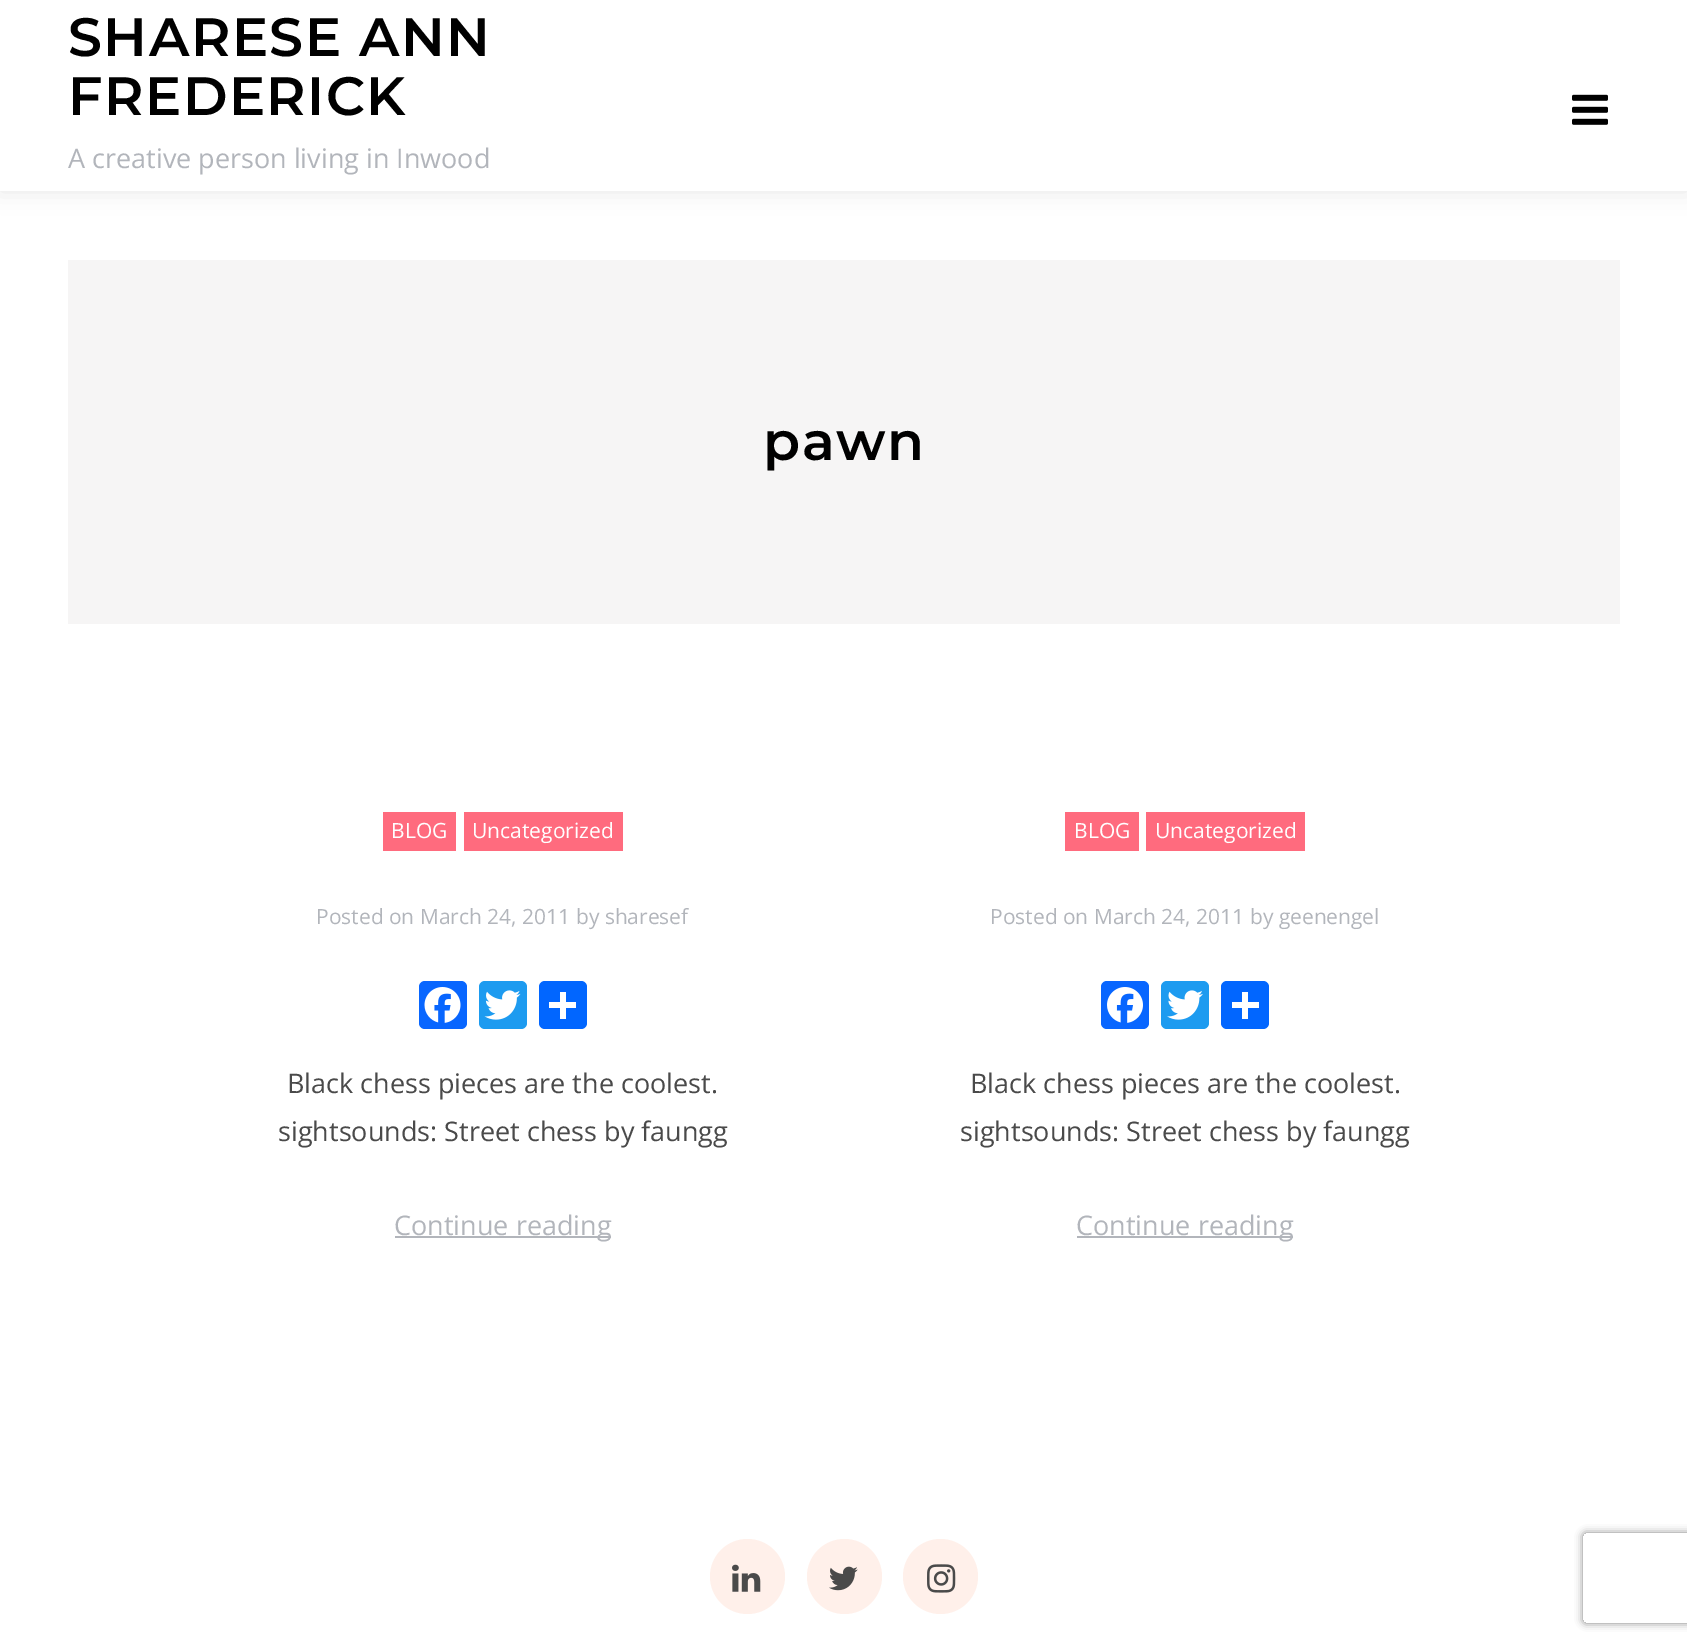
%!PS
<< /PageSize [1687 1643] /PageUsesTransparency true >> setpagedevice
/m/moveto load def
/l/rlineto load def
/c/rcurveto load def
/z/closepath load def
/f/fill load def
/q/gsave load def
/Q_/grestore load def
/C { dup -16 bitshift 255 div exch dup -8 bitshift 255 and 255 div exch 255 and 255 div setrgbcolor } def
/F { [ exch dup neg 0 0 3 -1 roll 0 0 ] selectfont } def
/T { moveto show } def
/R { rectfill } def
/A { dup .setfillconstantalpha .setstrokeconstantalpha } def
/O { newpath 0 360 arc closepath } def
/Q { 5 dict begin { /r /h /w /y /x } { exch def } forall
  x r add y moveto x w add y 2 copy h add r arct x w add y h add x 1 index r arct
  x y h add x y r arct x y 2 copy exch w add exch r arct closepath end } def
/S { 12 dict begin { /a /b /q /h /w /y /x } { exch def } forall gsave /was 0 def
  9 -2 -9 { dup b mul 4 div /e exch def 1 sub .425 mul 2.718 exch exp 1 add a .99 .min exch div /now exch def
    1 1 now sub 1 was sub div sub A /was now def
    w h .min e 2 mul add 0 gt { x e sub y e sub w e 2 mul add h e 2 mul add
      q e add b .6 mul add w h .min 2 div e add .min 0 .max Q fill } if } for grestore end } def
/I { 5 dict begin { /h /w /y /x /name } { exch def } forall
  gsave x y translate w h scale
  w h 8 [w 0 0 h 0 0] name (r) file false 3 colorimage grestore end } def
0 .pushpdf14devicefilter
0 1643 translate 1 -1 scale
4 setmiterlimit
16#FFFFFF C
0 0 1687 1643 R
q
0 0 m 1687 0 l 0 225 l -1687 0 l z 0 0 m 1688 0 l 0 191 l -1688 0 l z eoclip newpath
16#000000 C
0 0 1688 191 0 11 .1 S
Q_
0.84 A
0 190 1687 1 R
/Montserrat-SemiBold 54 F
1 A
16#000000 C
68 56 m 1.5 0 (SHARESE ANN) ashow
68 115 m 1.5 0 (FREDERICK) ashow
/OpenSans-Regular 27 F
16#B2B5BB C
(A creative person living in Inwood) 68 168 T
(1.rgb) 1572 94 36 31 I
16#F6F5F5 C
68 260 1552 364 R
/Montserrat-SemiBold 54 F
16#000000 C
763 460 m 1.5 0 (pawn) ashow
16#FF6B7E C
383 812 73 39 R
/OpenSans-Regular 21 F
16#FFFFFF C
(BLOG) 391 838 T
16#FF6B7E C
464 812 159 39 R
16#FFFFFF C
(Uncategorized) 472 838 T
16#B2B5BB C
(Posted on March 24, 2011 by sharesef) 316 924 T
16#0866FF C
419 981 48 48 6 Q f
(2.rgb) 424 987 37 36 I
16#1D9BF0 C
479 981 48 48 6 Q f
(3.rgb) 484 990 37 30 I
16#0166FF C
539 981 48 48 6 Q f
16#FFFFFF C
560 992 6 27 R
549 1002 27 6 R
/OpenSans-Regular 27 F
16#4A4A4A C
(Black chess pieces are the coolest.) 287 1093 T
(sightsounds: Street chess by faungg) 278 1141 T
16#B2B5BB C
395 1236 216 2 R
(Continue reading) 394 1235 T
16#FF6B7E C
1065 812 74 39 R
/OpenSans-Regular 21 F
16#FFFFFF C
(BLOG) 1074 838 T
16#FF6B7E C
1146 812 159 39 R
16#FFFFFF C
(Uncategorized) 1155 838 T
16#B2B5BB C
(Posted on March 24, 2011 by geenengel) 990 924 T
16#0866FF C
1101 981 48 48 6 Q f
(4.rgb) 1107 987 36 36 I
16#1D9BF0 C
1161 981 48 48 6 Q f
(5.rgb) 1167 990 36 30 I
16#0166FF C
1221 981 48 48 6 Q f
16#FFFFFF C
1242 992 6 27 R
1232 1002 27 6 R
/OpenSans-Regular 27 F
16#4A4A4A C
(Black chess pieces are the coolest.) 970 1093 T
(sightsounds: Street chess by faungg) 960 1141 T
16#B2B5BB C
1077 1236 216 2 R
(Continue reading) 1076 1235 T
16#FFF0EA C
747.5 1576.5 37.5 O f
(6.rgb) 732 1564 29 28 I
844.5 1576.5 37.5 O f
(7.rgb) 829 1566 29 25 I
940.5 1576.5 37.5 O f
(8.rgb) 927 1564 29 29 I
q
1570 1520 m 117 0 l 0 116 l -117 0 l z 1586 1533 m 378 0 l 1.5 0 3 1.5 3 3 c 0 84 l 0 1.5 -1.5 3 -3 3 c -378 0 l -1.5 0 -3 -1.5 -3 -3 c 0 -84 l 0 -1.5 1.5 -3 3 -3 c z eoclip newpath
16#808080 C
1583 1533 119 90 3 4 1 S
Q_
.poppdf14devicefilter showpage
